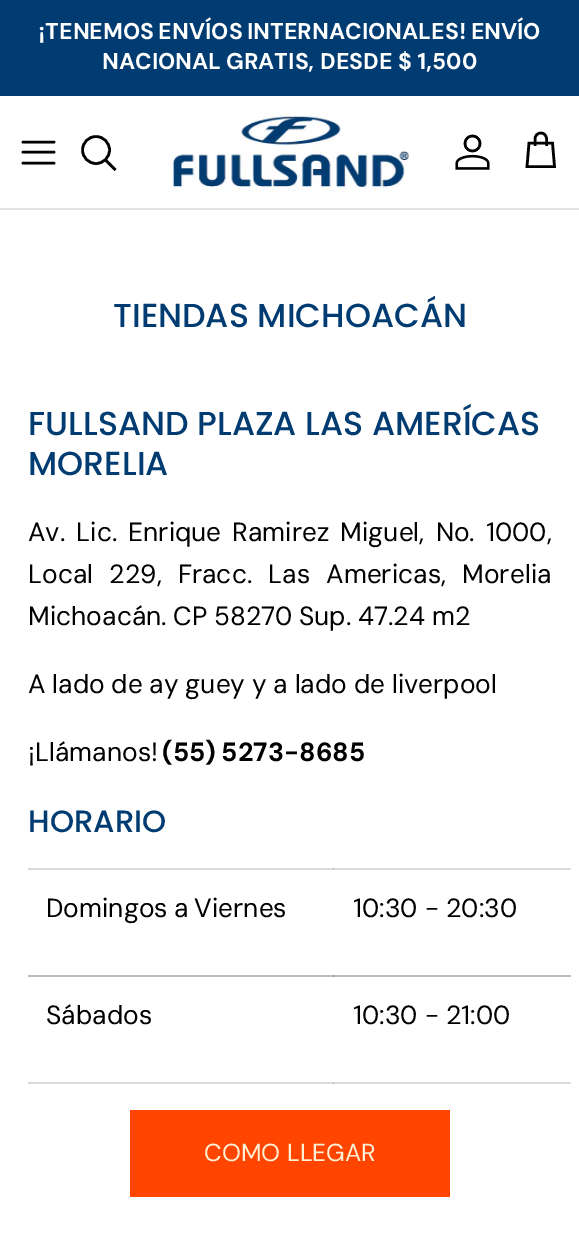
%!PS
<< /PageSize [579 1240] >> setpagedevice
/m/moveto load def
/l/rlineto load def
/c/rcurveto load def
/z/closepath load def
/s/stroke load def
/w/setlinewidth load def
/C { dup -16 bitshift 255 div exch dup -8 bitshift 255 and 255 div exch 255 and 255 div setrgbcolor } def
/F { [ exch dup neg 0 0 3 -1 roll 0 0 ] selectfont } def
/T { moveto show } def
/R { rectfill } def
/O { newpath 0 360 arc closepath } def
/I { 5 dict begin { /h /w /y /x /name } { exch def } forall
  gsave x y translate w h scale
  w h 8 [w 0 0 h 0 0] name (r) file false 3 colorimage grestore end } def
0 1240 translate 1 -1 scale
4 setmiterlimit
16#FFFFFF C
0 0 579 1240 R
16#DBDBDB C
28 868 543 2 R
28 1082 543 2 R
16#BCBCBC C
28 975 543 2 R
16#003B71 C
0 0 579 96 R
/DMSans-Bold 22.75 F
16#FFFFFF C
38 39 m -1 0 32 (¡TENEMOS ENVÍOS INTERNACIONALES! ENVÍO) widthshow
102 69 m -1 0 32 (NACIONAL GRATIS,) widthshow
(DESDE $ 1,500) 320 69 T
16#E2E2E2 C
0 208 579 2 R
16#000000 C
2.6 w
1 setlinecap
1 setlinejoin
23 152 m 31 0 l 23 142 m 31 0 l 23 163 m 31 0 l s
0 setlinecap
0 setlinejoin
96 150 13.5 O s
2 setlinecap
106.5 161 m 8 8 l s
(1.rgb) 172 114 239 78 I
(2.rgb) 455 134 35 36 I
0 setlinecap
546.5 146 m 0 -7 l 0 -3.5 -2.5 -6 -5.5 -6 c -3.5 0 -6 2.5 -6 6 c 0 7 l 529 143 m 23.5 0 l 2 23.5 l -27.5 0 l z s
/Poppins-Medium 33.25 F
16#003B71 C
(TIENDAS MICHOACÁN) 113 327 T
(FULLSAND PLAZA LAS AMERÍCAS) 28 435 T
(MORELIA) 28 475 T
/DMSans-Regular 26.25 F
16#000000 C
28 541 m 4 0 32 (Av. Lic. Enrique Ramirez Miguel, No. 1000,) widthshow
28 583 m 9 0 32 (Local 229, Fracc. Las Americas, Morelia) widthshow
28 625 m -.5 0 32 (Michoacán. CP 58270 Sup. 47.24 m2) widthshow
28 693 m -.25 0 32 (A lado de ay guey y a lado de liverpool) widthshow
(¡Llámanos!) 28 761 T
/DMSans-Bold 26.25 F
162 761 m -1 0 32 (\(55\) 5273-8685) widthshow
/Poppins-Medium 30.75 F
16#003B71 C
(HORARIO) 28 832 T
/DMSans-Regular 26.25 F
16#000000 C
46 917 m -1 0 32 (Domingos a Viernes) widthshow
16#BCBCBC C
333 868 1 2 R
16#000000 C
(10:30 - 20:30) 353 917 T
(Sábados) 46 1024 T
16#8B8B8B C
333 975 1 2 R
16#BCBCBC C
333 1082 1 2 R
16#000000 C
(10:30 - 21:00) 353 1024 T
16#FF4500 C
130 1110 320 87 R
/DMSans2-Regular 24.5 F
16#FFEFD5 C
(COMO LLEGAR) 204 1161 T
showpage
